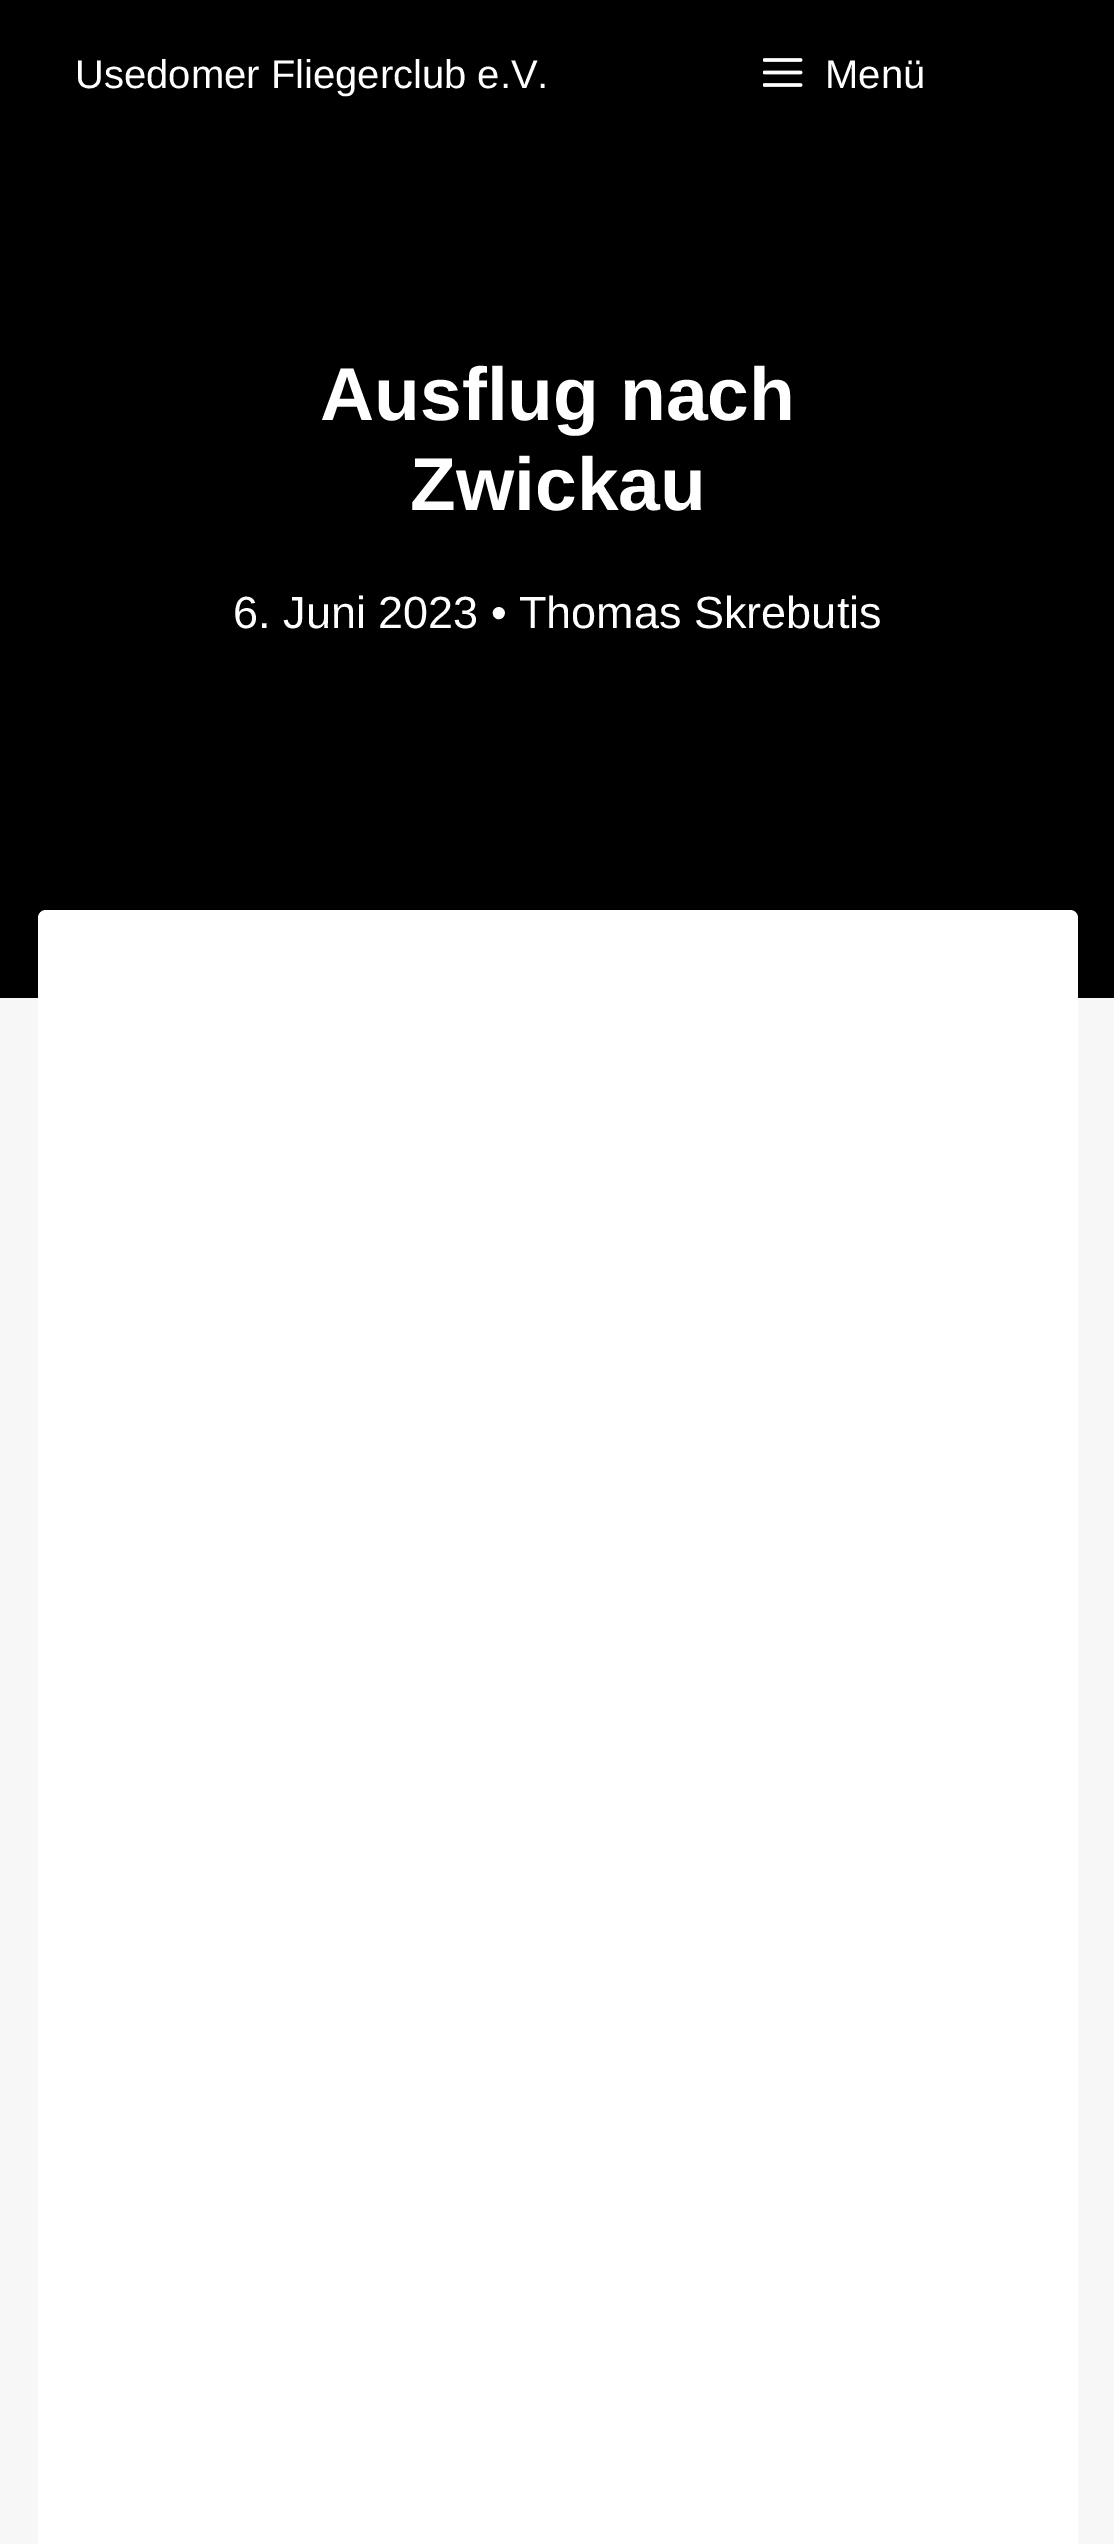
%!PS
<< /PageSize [1114 2544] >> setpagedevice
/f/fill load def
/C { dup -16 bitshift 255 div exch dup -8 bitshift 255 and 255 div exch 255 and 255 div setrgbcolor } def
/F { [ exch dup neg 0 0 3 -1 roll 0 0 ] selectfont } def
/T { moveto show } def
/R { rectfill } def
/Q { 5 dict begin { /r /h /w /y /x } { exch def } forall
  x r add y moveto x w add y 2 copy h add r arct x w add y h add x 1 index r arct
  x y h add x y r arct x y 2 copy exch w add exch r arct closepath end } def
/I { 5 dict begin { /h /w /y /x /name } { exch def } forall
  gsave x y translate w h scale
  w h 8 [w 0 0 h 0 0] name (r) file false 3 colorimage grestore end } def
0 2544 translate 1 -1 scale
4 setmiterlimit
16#F7F7F7 C
0 0 1114 2544 R
16#000000 C
0 0 1114 998 R
/LiberationSans-Regular 40 F
16#FFFFFF C
(Usedomer Fliegerclub e.V.) 75 88 T
(1.rgb) 763 58 40 29 I
(Menü) 825 88 T
/LiberationSans-Bold 75 F
(Ausflug nach) 320 420 T
(Zwickau) 410 510 T
/LiberationSans-Regular 45 F
(6. Juni 2023 • Thomas Skrebutis) 233 628 T
38 910 1040 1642 8 Q f
showpage
